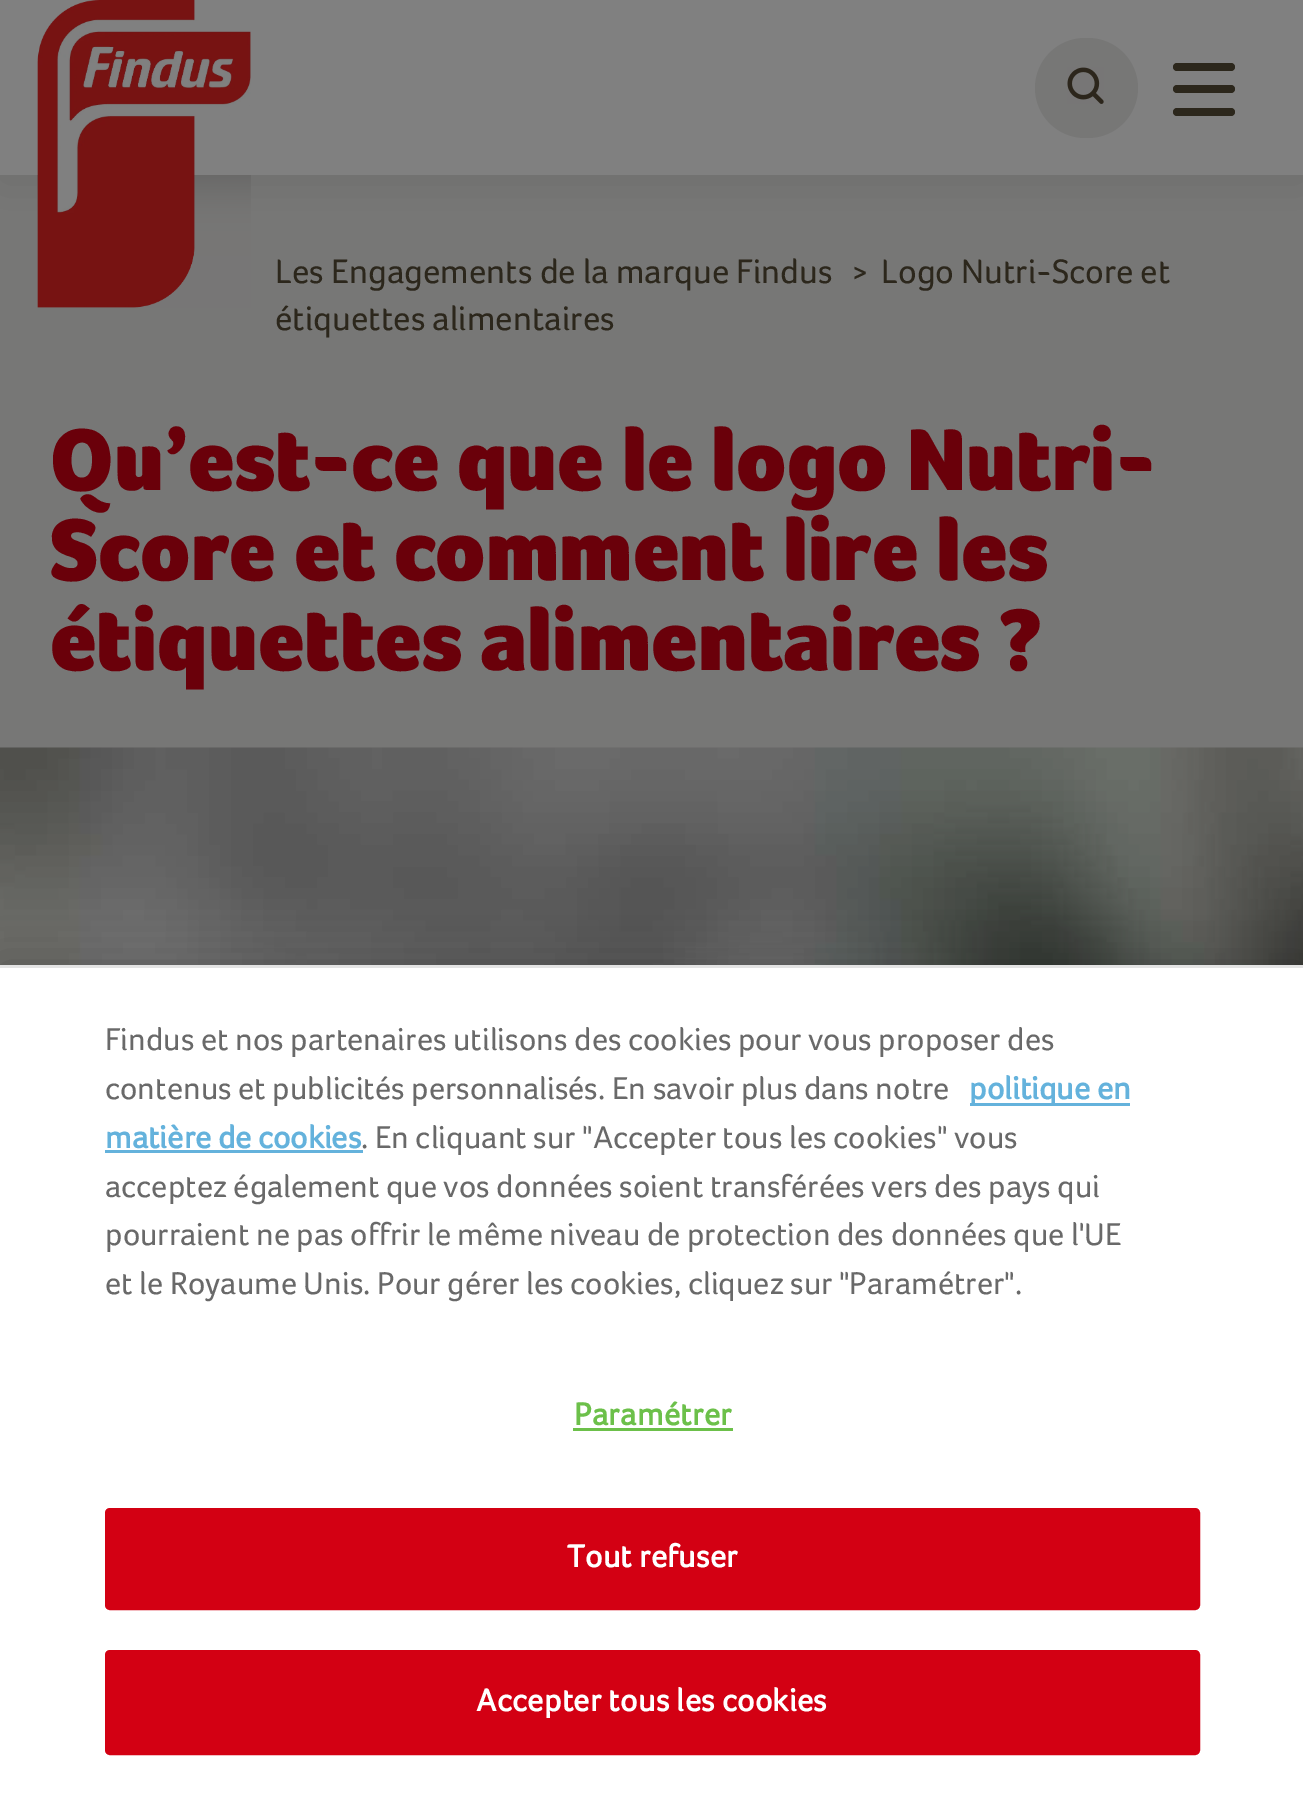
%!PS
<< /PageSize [1303 1795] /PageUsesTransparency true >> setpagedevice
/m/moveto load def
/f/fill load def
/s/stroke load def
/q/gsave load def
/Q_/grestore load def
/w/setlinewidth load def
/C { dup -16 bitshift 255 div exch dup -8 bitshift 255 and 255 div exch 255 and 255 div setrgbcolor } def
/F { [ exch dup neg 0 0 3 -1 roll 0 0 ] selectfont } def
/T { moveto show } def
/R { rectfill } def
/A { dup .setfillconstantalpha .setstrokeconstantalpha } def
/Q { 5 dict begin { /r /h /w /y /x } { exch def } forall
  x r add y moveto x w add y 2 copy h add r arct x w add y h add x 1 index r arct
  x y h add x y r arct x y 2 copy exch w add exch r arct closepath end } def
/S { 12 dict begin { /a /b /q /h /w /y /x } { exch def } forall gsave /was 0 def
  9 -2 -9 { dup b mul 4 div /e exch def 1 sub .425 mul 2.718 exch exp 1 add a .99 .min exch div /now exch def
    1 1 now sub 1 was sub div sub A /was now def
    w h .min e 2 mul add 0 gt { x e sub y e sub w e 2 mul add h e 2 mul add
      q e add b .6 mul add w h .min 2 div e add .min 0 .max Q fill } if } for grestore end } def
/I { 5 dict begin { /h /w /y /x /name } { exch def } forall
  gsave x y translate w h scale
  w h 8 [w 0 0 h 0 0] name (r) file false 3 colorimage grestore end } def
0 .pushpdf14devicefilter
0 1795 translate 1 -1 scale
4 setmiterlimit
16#777776 C
0 0 1303 1795 R
16#000000 C
0 5 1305 175 0 25 .1 S
16#808080 C
0 0 1303 175 R
(1.rgb) 37 0 214 308 I
16#777776 C
1035 38 103 100 50 Q f
(2.rgb) 1067 67 37 37 I
16#2C271C C
1173 85 62 8 4 Q f
1173 63 62 8 4 Q f
1173 108 62 8 4 Q f
/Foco-Regular 35 F
(Les Engagements de la marque Findus) 275 283 T
/Foco-Regular 30 F
(>) 852 283 T
/Foco-Regular 35 F
(Logo Nutri-Score et) 881 283 T
(étiquettes alimentaires) 275 330 T
/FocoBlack-Black 90 F
16#6A000A C
(Qu’est-ce que le logo Nutri-) 50 490 T
(Score et comment lire les) 50 580 T
(étiquettes alimentaires ?) 50 670 T
(3.rgb) 0 747 1303 218 I
16#000000 C
0 965 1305 830 0 22.5 .2 S
16#FFFFFF C
0 968 1303 827 R
16#E3E3E3 C
0 965 1303 3 R
/Foco-Regular 32.5 F
16#696969 C
(Findus et nos partenaires utilisons des cookies pour vous proposer des) 105 1050 T
(contenus et publicités personnalisés. En savoir plus dans notre) 105 1099 T
16#64B2DC C
970 1103 160 3 R
/Foco-Bold 32.5 F
(politique en) 969 1099 T
(matière de cookies) 105 1148 T
105 1150 258 3 R
/Foco-Regular 32.5 F
16#696969 C
(. En cliquant sur "Accepter tous les cookies" vous) 361 1148 T
(acceptez également que vos données soient transférées vers des pays qui) 105 1197 T
(pourraient ne pas offrir le même niveau de protection des données que l'UE) 105 1245 T
(et le Royaume Unis. Pour gérer les cookies, cliquez sur "Paramétrer".) 105 1294 T
/Foco-Bold 32.5 F
16#6CC04A C
574 1425 m .3 0 (Paramétrer) ashow
573 1428 160 3 R
16#D30013 C
106.5 1509.5 1092 99 3.5 Q q f Q_
3 w
s
16#FFFFFF C
567 1567 m .3 0 (Tout refuser) ashow
16#D30013 C
106.5 1651.5 1092 102 3.5 Q q f Q_
s
16#FFFFFF C
476 1711 m .3 0 (Accepter tous les cookies) ashow
.poppdf14devicefilter showpage
